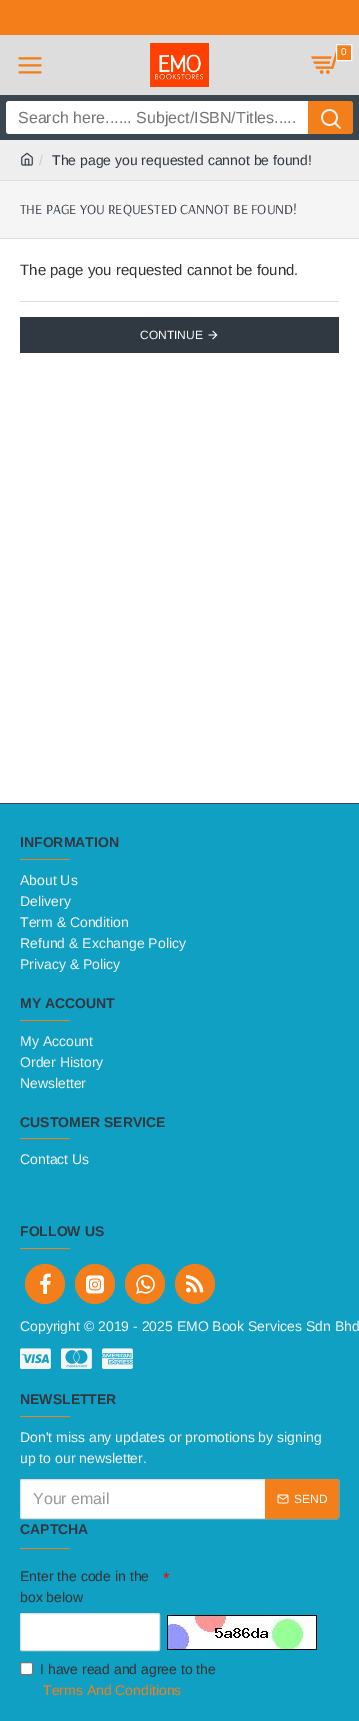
%!PS
<< /PageSize [359 1721] >> setpagedevice
/m/moveto load def
/l/rlineto load def
/c/rcurveto load def
/z/closepath load def
/f/fill load def
/s/stroke load def
/q/gsave load def
/Q_/grestore load def
/C { dup -16 bitshift 255 div exch dup -8 bitshift 255 and 255 div exch 255 and 255 div setrgbcolor } def
/F { [ exch dup neg 0 0 3 -1 roll 0 0 ] selectfont } def
/T { moveto show } def
/R { rectfill } def
/O { newpath 0 360 arc closepath } def
/Q { 5 dict begin { /r /h /w /y /x } { exch def } forall
  x r add y moveto x w add y 2 copy h add r arct x w add y h add x 1 index r arct
  x y h add x y r arct x y 2 copy exch w add exch r arct closepath end } def
/I { 5 dict begin { /h /w /y /x /name } { exch def } forall
  gsave x y translate w h scale
  w h 8 [w 0 0 h 0 0] name (r) file false 3 colorimage grestore end } def
0 1721 translate 1 -1 scale
4 setmiterlimit
16#EEEEEE C
0 0 359 1721 R
16#F47F1A C
0 0 359 35 R
16#DDDDDD C
0 35 359 60 R
(1.rgb) 150 43 59 44 I
(2.rgb) 311 51 25 23 I
16#F47F1A C
336.5 44.5 m 15 0 l 0 16 l -15 0 l z q f Q_
16#FFFFFF C
s
/LiberationSans-Regular 10 F
(0) 341 55 T
(3.rgb) 18 57 24 17 I
16#3A4750 C
0 95 359 45 R
16#FFFFFF C
9 101 m 299 0 l 0 33 l -299 0 l -1.5 0 -3 -1.5 -3 -3 c 0 -27 l 0 -1.5 1.5 -3 3 -3 c z f
/LiberationSans-Regular 16 F
16#757575 C
(Search here...... Subject/ISBN/Titles.....) 18 123 T
16#F47F1A C
308 101 m 42 0 l 1.5 0 3 1.5 3 3 c 0 27 l 0 1.5 -1.5 3 -3 3 c -42 0 l z f
(4.rgb) 321 109 20 20 I
(5.rgb) 21 152 12 14 I
/LiberationSans-Regular 14 F
16#CCCCCC C
(/) 39 165 T
16#303841 C
(The page you requested cannot be found!) 52 165 T
16#DDDDDD C
0 180 359 1 R
16#F5F5F5 C
0 181 359 57 R
16#DDDDDD C
0 238 359 1 R
/Arsenal-Regular 14 F
16#303841 C
(THE PAGE YOU REQUESTED CANNOT BE FOUND!) 20 214 T
16#FFFFFF C
0 239 359 564 R
/LiberationSans-Regular 15 F
16#333333 C
(The page you requested cannot be found.) 20 275 T
16#DDDDDD C
20 301 319 1 R
16#303841 C
20 317 319 36 R
/LiberationSans-Regular 12 F
16#FFFFFF C
(CONTINUE) 140 339 T
(6.rgb) 208 330 10 10 I
16#0FA0C3 C
0 804 359 917 R
16#3A4750 C
0 803 359 1 R
/LiberationSans-Bold 14 F
16#303841 C
(INFORMATION) 20 847 T
16#F47F1A C
20 859 50 1 R
/LiberationSans-Regular 14 F
16#F5F5F5 C
(About Us) 20 885 T
(Delivery) 20 906 T
(Term & Condition) 20 927 T
(Refund & Exchange Policy) 20 948 T
(Privacy & Policy) 20 969 T
/LiberationSans-Bold 14 F
16#303841 C
(MY ACCOUNT) 20 1008 T
16#F47F1A C
20 1020 50 1 R
/LiberationSans-Regular 14 F
16#F5F5F5 C
(My Account) 20 1046 T
(Order History) 20 1067 T
(Newsletter) 20 1088 T
/LiberationSans-Bold 14 F
16#303841 C
(CUSTOMER SERVICE) 20 1127 T
16#F47F1A C
20 1138 50 1 R
/LiberationSans-Regular 14 F
16#F5F5F5 C
(Contact Us) 20 1164 T
/LiberationSans-Bold 14 F
16#303841 C
(FOLLOW US) 20 1236 T
16#F47F1A C
20 1248 50 1 R
45 1284 20 O f
(7.rgb) 40 1273 11 21 I
95 1284 20 O f
(8.rgb) 86 1275 18 19 I
145 1284 20 O f
(9.rgb) 136 1275 19 19 I
195 1284 20 O f
(10.rgb) 186 1275 18 18 I
/LiberationSans-Regular 14 F
16#F5F5F5 C
(Copyright © 2019 - 2025 EMO Book Services Sdn Bhd) 20 1331 T
(11.rgb) 20 1348 31 21 I
(12.rgb) 61 1348 31 21 I
(13.rgb) 102 1348 31 21 I
/LiberationSans-Bold 14 F
16#303841 C
(NEWSLETTER) 20 1404 T
16#F47F1A C
20 1416 50 1 R
/LiberationSans-Regular 14 F
16#F5F5F5 C
(Don't miss any updates or promotions by signing) 20 1442 T
(up to our newsletter.) 20 1463 T
16#FFFFFF C
20.5 1479.5 318 39 1.5 Q q f Q_
16#DDDDDD C
s
/LiberationSans-Regular 16 F
16#999999 C
(Your email) 33 1504 T
16#F47F1A C
265 1479 74 40 R
(14.rgb) 277 1494 12 10 I
/LiberationSans-Regular 12 F
16#FFFFFF C
(SEND) 294 1503 T
/LiberationSans-Bold 14 F
16#303841 C
(CAPTCHA) 20 1534 T
16#F47F1A C
20 1548 50 1 R
/LiberationSans-Regular 14 F
16#333333 C
(Enter the code in the) 20 1581 T
/LiberationSans-Regular 17 F
16#FF0000 C
(*) 163 1584 T
/LiberationSans-Regular 14 F
16#333333 C
(box below) 20 1602 T
16#FFFFFF C
20.5 1613.5 139 37 1.5 Q q f Q_
16#DDDDDD C
s
(15.rgb) 167 1615 150 35 I
16#FFFFFF C
20.5 1662.5 12 12 1.5 Q q f Q_
16#767676 C
s
16#333333 C
(I have read and agree to the) 40 1674 T
16#F47F1A C
(Terms And Conditions) 43 1695 T
showpage
